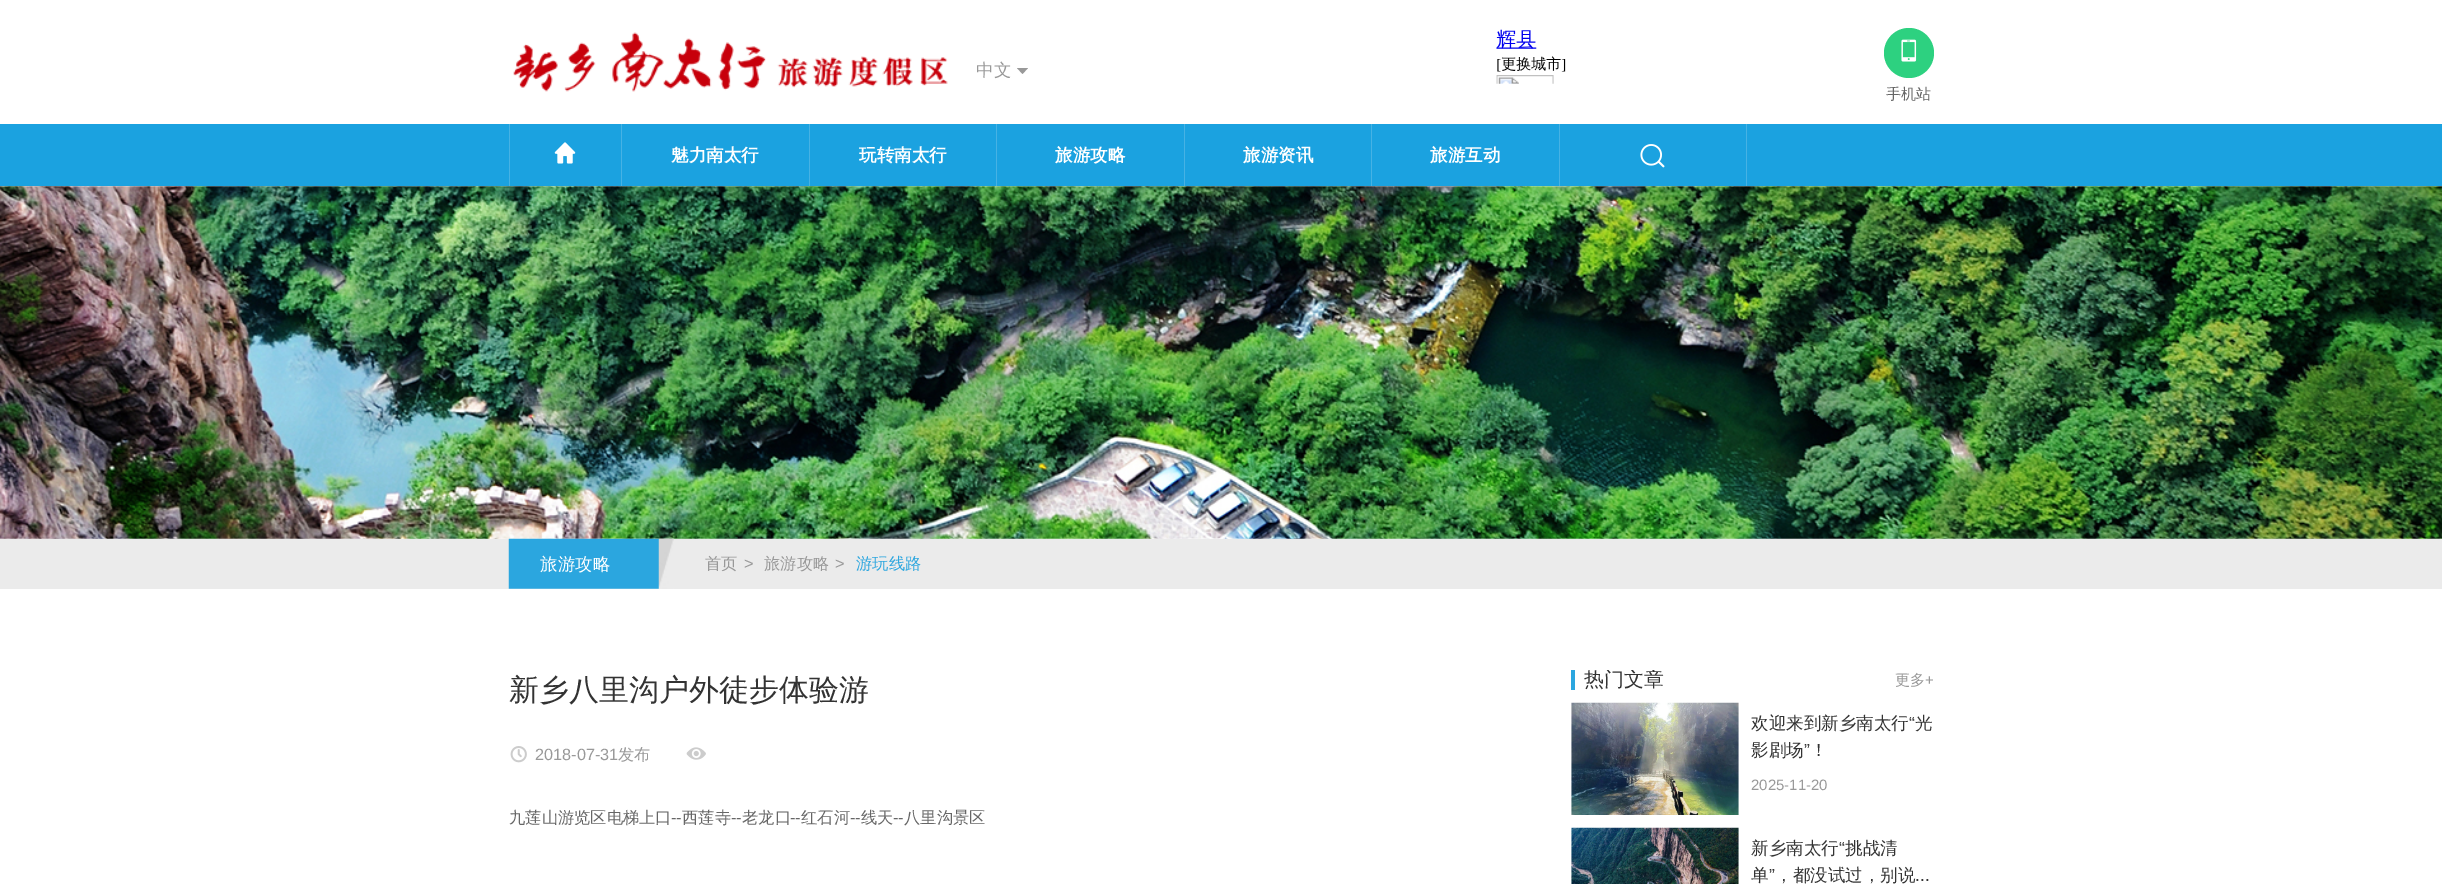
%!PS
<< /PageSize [2442 884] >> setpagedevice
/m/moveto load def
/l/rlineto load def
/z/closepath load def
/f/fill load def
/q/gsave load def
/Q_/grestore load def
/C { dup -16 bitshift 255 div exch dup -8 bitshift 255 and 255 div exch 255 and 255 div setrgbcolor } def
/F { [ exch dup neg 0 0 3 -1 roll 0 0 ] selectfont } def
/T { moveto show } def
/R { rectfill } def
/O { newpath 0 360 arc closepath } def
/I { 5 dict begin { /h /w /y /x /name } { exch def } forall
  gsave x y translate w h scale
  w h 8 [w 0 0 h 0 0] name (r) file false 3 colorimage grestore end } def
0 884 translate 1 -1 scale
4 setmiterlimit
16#FFFFFF C
0 0 2442 884 R
(1.rgb) 513 32 435 60 I
/WenQuanYiZenHei-Medium 17.5 F
16#999999 C
(中文) 976 76 T
1017 68 m 5.5 6 l 5.5 -6 l z f
(2.rgb) 1496 29 70 55 I
16#2DD180 C
1909 53 25 O f
(3.rgb) 1901 39 16 23 I
/WenQuanYiZenHei-Medium 15 F
16#666666 C
(手机站) 1886 99 T
16#1BA2E0 C
0 124 2442 62 R
16#46B2E4 C
509 124 1 62 R
621 124 1 62 R
(4.rgb) 554 142 22 22 I
809 124 1 62 R
/WenQuanYiZenHei-Bold 17.5 F
16#FFFFFF C
(魅力南太行) 671 161 T
16#46B2E4 C
996 124 1 62 R
16#FFFFFF C
(玩转南太行) 859 161 T
16#46B2E4 C
1184 124 1 62 R
16#FFFFFF C
(旅游攻略) 1055 161 T
16#46B2E4 C
1371 124 1 62 R
16#FFFFFF C
(旅游资讯) 1243 161 T
16#46B2E4 C
1559 124 1 62 R
16#FFFFFF C
(旅游互动) 1430 161 T
16#46B2E4 C
1746 124 1 62 R
(5.rgb) 1640 144 25 24 I
(6.rgb) 0 186 2442 353 I
16#EBEBEB C
0 539 2442 50 R
(7.rgb) 508 538 166 51 I
/WenQuanYiZenHei-Medium 17.5 F
16#FFFFFF C
(旅游攻略) 540 570 T
/WenQuanYiZenHei-Medium 16.25 F
16#999999 C
(首页) 705 569 T
/LiberationSans-Regular 16.25 F
(>) 744 569 T
/WenQuanYiZenHei-Medium 16.25 F
(旅游攻略) 764 569 T
/LiberationSans-Regular 16.25 F
(>) 835 569 T
/WenQuanYiZenHei-Medium 16.25 F
16#2BA6DF C
(游玩线路) 856 569 T
/WenQuanYiZenHei-Medium 30 F
16#333333 C
(新乡八里沟户外徒步体验游) 509 700 T
(8.rgb) 510 746 17 17 I
/LiberationSans-Regular 16.25 F
16#999999 C
(2018-07-31) 535 760 T
/WenQuanYiZenHei-Medium 16.25 F
(发布) 618 760 T
(9.rgb) 686 747 20 13 I
16#666666 C
(九莲山游览区电梯上口) 509 823 T
/LiberationSans-Regular 16.25 F
(--) 671 823 T
/WenQuanYiZenHei-Medium 16.25 F
(西莲寺) 682 823 T
/LiberationSans-Regular 16.25 F
(--) 731 823 T
/WenQuanYiZenHei-Medium 16.25 F
(老龙口) 742 823 T
/LiberationSans-Regular 16.25 F
(--) 790 823 T
/WenQuanYiZenHei-Medium 16.25 F
(红石河) 801 823 T
/LiberationSans-Regular 16.25 F
(--) 850 823 T
/WenQuanYiZenHei-Medium 16.25 F
(线天) 861 823 T
/LiberationSans-Regular 16.25 F
(--) 893 823 T
/WenQuanYiZenHei-Medium 16.25 F
(八里沟景区) 904 823 T
16#2BA6DF C
1571 670 4 20 R
q
1575 670 359 20 rectclip
/WenQuanYiZenHei-Medium 20 F
16#333333 C
(热门文章) 1584 686 T
Q_
/WenQuanYiZenHei-Medium 15 F
16#999999 C
(更多) 1895 685 T
/LiberationSans-Regular 15 F
(+) 1925 685 T
(10.rgb) 1571 702 168 113 I
/WenQuanYiZenHei-Medium 17.5 F
16#333333 C
(欢迎来到新乡南太行) 1751 729 T
/LiberationSans-Regular 17.5 F
(“) 1909 729 T
/WenQuanYiZenHei-Medium 17.5 F
(光) 1915 729 T
(影剧场) 1751 756 T
/LiberationSans-Regular 17.5 F
(”) 1804 756 T
/WenQuanYiZenHei-Medium 17.5 F
(！) 1810 756 T
/LiberationSans-Regular 15 F
16#999999 C
(2025-11-20) 1751 790 T
(11.rgb) 1571 827 168 57 I
/WenQuanYiZenHei-Medium 17.5 F
16#333333 C
(新乡南太行) 1751 854 T
/LiberationSans-Regular 17.5 F
(“) 1839 854 T
/WenQuanYiZenHei-Medium 17.5 F
(挑战清) 1845 854 T
(单) 1751 881 T
/LiberationSans-Regular 17.5 F
(”) 1769 881 T
/WenQuanYiZenHei-Medium 17.5 F
(，都没试过，别说) 1775 881 T
/LiberationSans-Regular 17.5 F
(...) 1915 881 T
showpage
